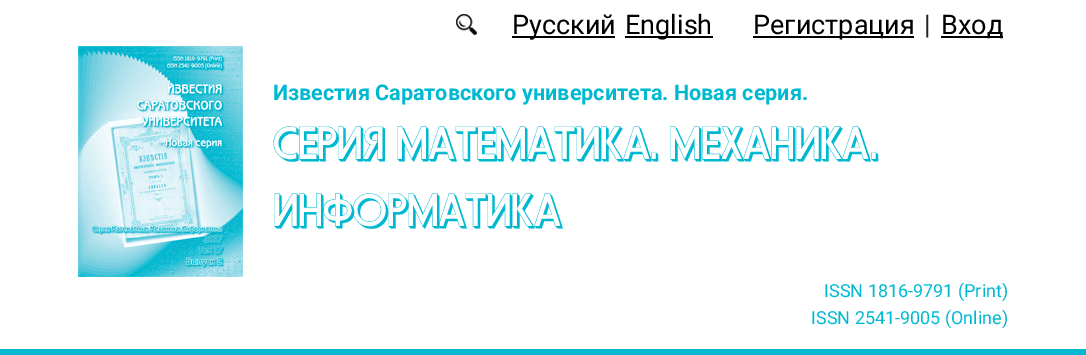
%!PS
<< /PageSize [1086 355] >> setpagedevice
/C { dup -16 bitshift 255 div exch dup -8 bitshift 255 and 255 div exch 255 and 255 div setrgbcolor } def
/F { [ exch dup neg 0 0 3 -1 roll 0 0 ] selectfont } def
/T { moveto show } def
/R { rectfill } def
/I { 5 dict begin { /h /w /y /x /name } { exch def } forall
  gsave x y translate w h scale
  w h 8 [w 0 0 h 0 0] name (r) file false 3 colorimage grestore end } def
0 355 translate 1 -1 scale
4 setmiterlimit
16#FFFFFF C
0 0 1086 355 R
(1.rgb) 456 14 21 21 I
16#000000 C
512 36 103 2 R
/Roboto-Regular 27 F
(Русский) 512 34 T
625 36 88 2 R
(English) 625 34 T
753 36 161 2 R
(Регистрация) 753 34 T
16#212529 C
(|) 924 34 T
16#000000 C
941 36 62 2 R
(Вход) 941 34 T
(2.rgb) 78 46 165 231 I
/Roboto-Bold 21.6 F
16#00B9D1 C
(Известия Саратовского университета. Новая серия.) 273 100 T
/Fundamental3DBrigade-Regular 45 F
(СЕРИЯ МАТЕМАТИКА. МЕХАНИКА.) 273 159 T
(ИНФОРМАТИКА) 273 226 T
/Roboto-Regular 18 F
(ISSN 1816-9791 \(Print\)) 824 297 T
(ISSN 2541-9005 \(Online\)) 811 324 T
0 349 1086 6 R
showpage
